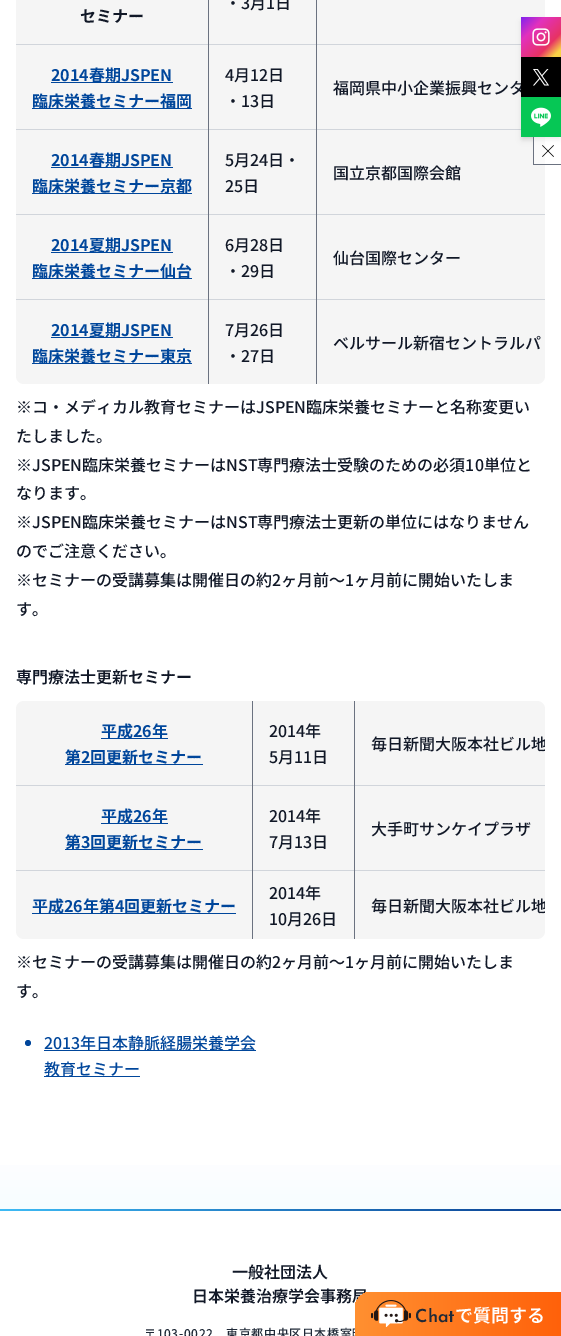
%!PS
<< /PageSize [561 1336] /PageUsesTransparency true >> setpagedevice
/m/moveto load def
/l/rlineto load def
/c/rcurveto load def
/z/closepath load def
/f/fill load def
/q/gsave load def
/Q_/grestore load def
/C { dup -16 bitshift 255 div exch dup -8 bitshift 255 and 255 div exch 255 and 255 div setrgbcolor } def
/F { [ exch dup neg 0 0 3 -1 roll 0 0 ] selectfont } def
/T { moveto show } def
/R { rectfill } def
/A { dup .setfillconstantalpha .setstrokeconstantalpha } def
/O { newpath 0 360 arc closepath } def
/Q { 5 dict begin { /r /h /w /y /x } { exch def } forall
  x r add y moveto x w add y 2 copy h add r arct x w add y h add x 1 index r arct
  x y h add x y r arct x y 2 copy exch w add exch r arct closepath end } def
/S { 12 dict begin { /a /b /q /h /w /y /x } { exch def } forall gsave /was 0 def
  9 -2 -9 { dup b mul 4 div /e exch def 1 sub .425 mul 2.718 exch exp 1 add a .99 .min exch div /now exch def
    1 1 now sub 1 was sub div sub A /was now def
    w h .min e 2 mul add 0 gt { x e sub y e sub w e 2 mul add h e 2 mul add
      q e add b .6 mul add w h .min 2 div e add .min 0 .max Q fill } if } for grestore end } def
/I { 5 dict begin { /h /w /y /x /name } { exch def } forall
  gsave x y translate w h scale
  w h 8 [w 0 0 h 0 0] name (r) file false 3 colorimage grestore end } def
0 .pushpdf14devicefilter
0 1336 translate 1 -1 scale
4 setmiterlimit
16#FFFFFF C
0 0 561 1336 R
16#F5F5F5 C
16 -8 529 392 8 Q f
16#D1D5DB C
16 44 505 1 R
/NotoSansJP-Medium 16 F
16#111827 C
(・3月1日) 225 9 T
/NotoSansJP-Bold 16 F
(セミナー) 80 22 T
16#D1D5DB C
16 129 505 1 R
16#00469B C
51 82 122 1 R
(2014春期JSPEN) 51 81 T
32 108 160 1 R
(臨床栄養セミナー福岡) 32 107 T
/NotoSansJP-Medium 16 F
16#111827 C
(4月12日) 225 81 T
(・13日) 225 107 T
(福岡県中小企業振興センタ) 333 94 T
16#D1D5DB C
16 214 529 1 R
16#00469B C
51 167 122 1 R
/NotoSansJP-Bold 16 F
(2014春期JSPEN) 51 166 T
32 193 160 1 R
(臨床栄養セミナー京都) 32 192 T
/NotoSansJP-Medium 16 F
16#111827 C
(5月24日・) 225 166 T
(25日) 225 192 T
(国立京都国際会館) 333 179 T
16#D1D5DB C
16 299 529 1 R
16#00469B C
51 252 122 1 R
/NotoSansJP-Bold 16 F
(2014夏期JSPEN) 51 251 T
32 278 160 1 R
(臨床栄養セミナー仙台) 32 277 T
/NotoSansJP-Medium 16 F
16#111827 C
(6月28日) 225 251 T
(・29日) 225 277 T
(仙台国際センター) 333 264 T
16#00469B C
51 337 122 1 R
/NotoSansJP-Bold 16 F
(2014夏期JSPEN) 51 336 T
32 363 160 1 R
(臨床栄養セミナー東京) 32 362 T
16#6B7280 C
208 0 1 384 R
/NotoSansJP-Medium 16 F
16#111827 C
(7月26日) 225 336 T
(・27日) 225 362 T
16#6B7280 C
316 0 1 384 R
16#111827 C
(ベルサール新宿セントラルパ) 333 349 T
(※コ・メディカル教育セミナーはJSPEN臨床栄養セミナーと名称変更い) 16 413 T
(たしました。) 16 442 T
(※JSPEN臨床栄養セミナーはNST専門療法士受験のための必須10単位と) 16 471 T
(なります。) 16 499 T
(※JSPEN臨床栄養セミナーはNST専門療法士更新の単位にはなりません) 16 528 T
(のでご注意ください。) 16 557 T
(※セミナーの受講募集は開催日の約2ヶ月前～1ヶ月前に開始いたしま) 16 586 T
(す。) 16 615 T
/NotoSansJP-SemiBold 16 F
(専門療法士更新セミナー) 16 683 T
16#F5F5F5 C
16 701 529 238 8 Q f
16#D1D5DB C
16 785 529 1 R
16#00469B C
101 738 67 1 R
/NotoSansJP-Bold 16 F
(平成26年) 101 737 T
65 764 138 1 R
(第2回更新セミナー) 65 763 T
/NotoSansJP-Medium 16 F
16#111827 C
(2014年) 269 737 T
(5月11日) 269 763 T
q
16 701 529 238 8 Q clip newpath
(毎日新聞大阪本社ビル地) 371 750 T
Q_
16#D1D5DB C
16 870 529 1 R
16#00469B C
101 823 67 1 R
/NotoSansJP-Bold 16 F
(平成26年) 101 822 T
65 849 138 1 R
(第3回更新セミナー) 65 848 T
/NotoSansJP-Medium 16 F
16#111827 C
(2014年) 269 822 T
(7月13日) 269 848 T
(大手町サンケイプラザ) 371 835 T
16#00469B C
32 913 204 1 R
/NotoSansJP-Bold 16 F
(平成26年第4回更新セミナー) 32 912 T
16#6B7280 C
252 701 1 238 R
/NotoSansJP-Medium 16 F
16#111827 C
(2014年) 269 899 T
(10月26日) 269 925 T
16#6B7280 C
354 701 1 238 R
q
16 701 529 238 8 Q clip newpath
16#111827 C
(毎日新聞大阪本社ビル地) 371 912 T
Q_
16#111827 C
(※セミナーの受講募集は開催日の約2ヶ月前～1ヶ月前に開始いたしま) 16 968 T
(す。) 16 997 T
16#00469B C
28 1043 3 O f
44 1050 212 1 R
(2013年日本静脈経腸栄養学会) 44 1049 T
44 1076 96 1 R
(教育セミナー) 44 1075 T
q 0 1165 m 561 0 l 0 44 l -561 0 l z clip newpath
<< /ShadingType 2 /ColorSpace /DeviceRGB /Coords [281 1145 281 1209] /Extend [true true] /Function << /FunctionType 2 /Domain [0 1] /C0 [1 1 1] /C1 [.969 .992 1] /N 1 >> >> shfill Q_
16#000000 C
523 21 36 116 0 2 .1 S
522 22 38 118 0 3 .1 S
(1.rgb) 521 17 40 40 I
521 57 40 40 R
(2.rgb) 533 69 16 17 I
(3.rgb) 521 97 40 40 I
0.5 A
16#FFFFFF C
534 137 27 27 R
1 A
16#6B7280 C
533 164 28 1 R
533 137 1 28 R
(4.rgb) 542 145 12 12 I
q 0 1209 m 561 0 l 0 2 l -561 0 l z clip newpath
<< /ShadingType 2 /ColorSpace /DeviceRGB /Coords [0 1210 561 1210] /Extend [true true] /Function << /FunctionType 2 /Domain [0 1] /C0 [.243 .733 .961] /C1 [.039 .243 .569] /N 1 >> >> shfill Q_
/NotoSansJP-SemiBold 16 F
16#111827 C
(一般社団法人) 232 1278 T
(日本栄養治療学会事務局) 192 1302 T
/NotoSansJP-Medium 12 F
16#1F2937 C
144 1338 m .6 0 (〒103-0022　東京都中央区日本橋室町) ashow
q 371 1292 m 190 0 l 0 44 l -206 0 l 0 -28 l 0 -9 7 -16 16 -16 c z clip newpath
<< /ShadingType 2 /ColorSpace /DeviceRGB /Coords [355 1314 561 1314] /Extend [true true] /Function << /FunctionType 2 /Domain [0 1] /C0 [1 .565 .192] /C1 [1 .38 .039] /N 1 >> >> shfill Q_
(5.rgb) 371 1300 40 27 I
/JosefinSans-SemiBold 18 F
(Chat) 415 1322 T
/NotoSansJP-SemiBold 18 F
16#FFFFFF C
(で質問する) 455 1322 T
.poppdf14devicefilter showpage
